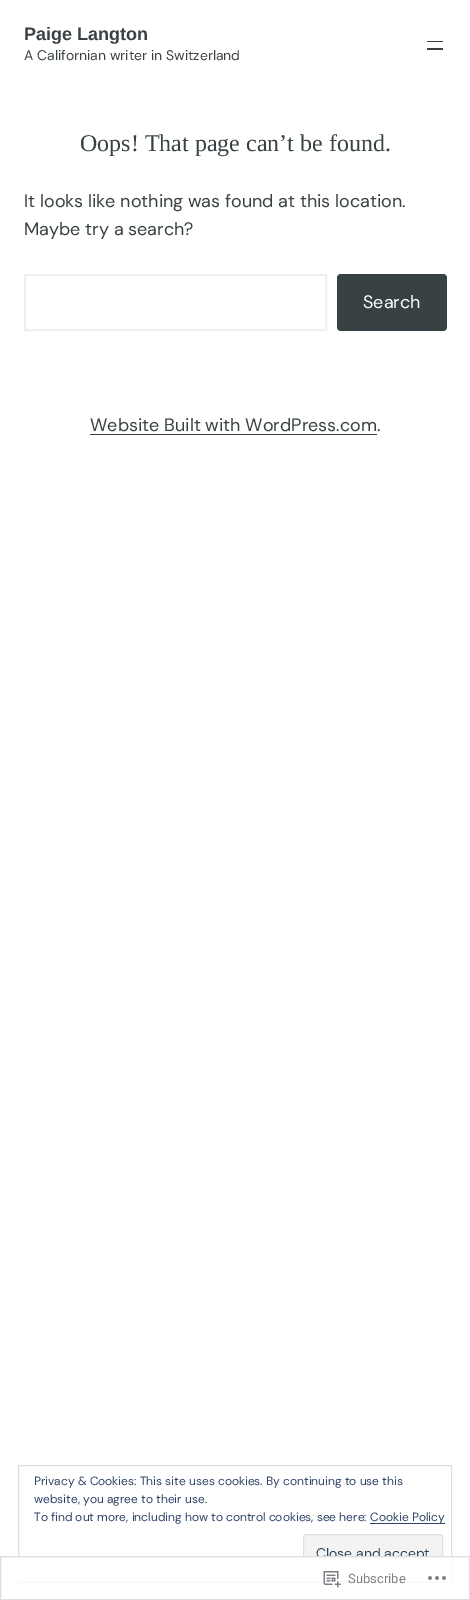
%!PS
<< /PageSize [470 1600] /PageUsesTransparency true >> setpagedevice
/f/fill load def
/s/stroke load def
/q/gsave load def
/Q_/grestore load def
/w/setlinewidth load def
/C { dup -16 bitshift 255 div exch dup -8 bitshift 255 and 255 div exch 255 and 255 div setrgbcolor } def
/F { [ exch dup neg 0 0 3 -1 roll 0 0 ] selectfont } def
/T { moveto show } def
/R { rectfill } def
/A { dup .setfillconstantalpha .setstrokeconstantalpha } def
/Q { 5 dict begin { /r /h /w /y /x } { exch def } forall
  x r add y moveto x w add y 2 copy h add r arct x w add y h add x 1 index r arct
  x y h add x y r arct x y 2 copy exch w add exch r arct closepath end } def
/I { 5 dict begin { /h /w /y /x /name } { exch def } forall
  gsave x y translate w h scale
  w h 8 [w 0 0 h 0 0] name (r) file false 3 colorimage grestore end } def
0 .pushpdf14devicefilter
0 1600 translate 1 -1 scale
4 setmiterlimit
16#FFFFFF C
0 0 470 1600 R
/LiberationSans-Bold 18 F
16#384143 C
(Paige Langton) 24 40 T
/DMSans-Regular 14 F
(A Californian writer in Switzerland) 24 60 T
427 41 16 1 R
427 48 16 2 R
/LiberationSerif-Regular 24 F
(Oops! That page can’t be found.) 80 151 T
/DMSans-Regular 18 F
(It looks like nothing was found at this location.) 24 207 T
(Maybe try a search?) 24 235 T
16#EFEFEF C
2 w
25 275 301 55 rectstroke
16#384143 C
337 274 110 57 4 Q f
16#FFFFFF C
(Search) 363 308 T
16#384143 C
(Website Built with WordPress.com.) 90 431 T
90 434 287 1 R
16#DEDEDE C
1 w
18.5 1465.5 433 116 rectstroke
/DMSans-Regular 12 F
16#2E4467 C
(Privacy & Cookies: This site uses cookies. By continuing to use this) 34 1485 T
(website, you agree to their use.) 34 1503 T
(To find out more, including how to control cookies, see here:) 34 1521 T
370 1523 75 1 R
(Cookie Policy) 370 1521 T
16#F3F3F3 C
303.5 1534.5 139 38 2.5 Q q f Q_
16#DEDEDE C
s
/DMSans-Regular 14 F
16#2E4453 C
(Close and accept) 316 1558 T
0.98 A
16#FFFFFF C
18 1556 434 26 R
16#DCDCDE C
.5 1556.5 469 43 rectstroke
1 A
(1.rgb) 323 1571 18 17 I
/Roboto-Regular 13 F
16#7B7F84 C
(Subscribe) 348 1583 T
(2.rgb) 428 1576 18 4 I
.poppdf14devicefilter showpage
